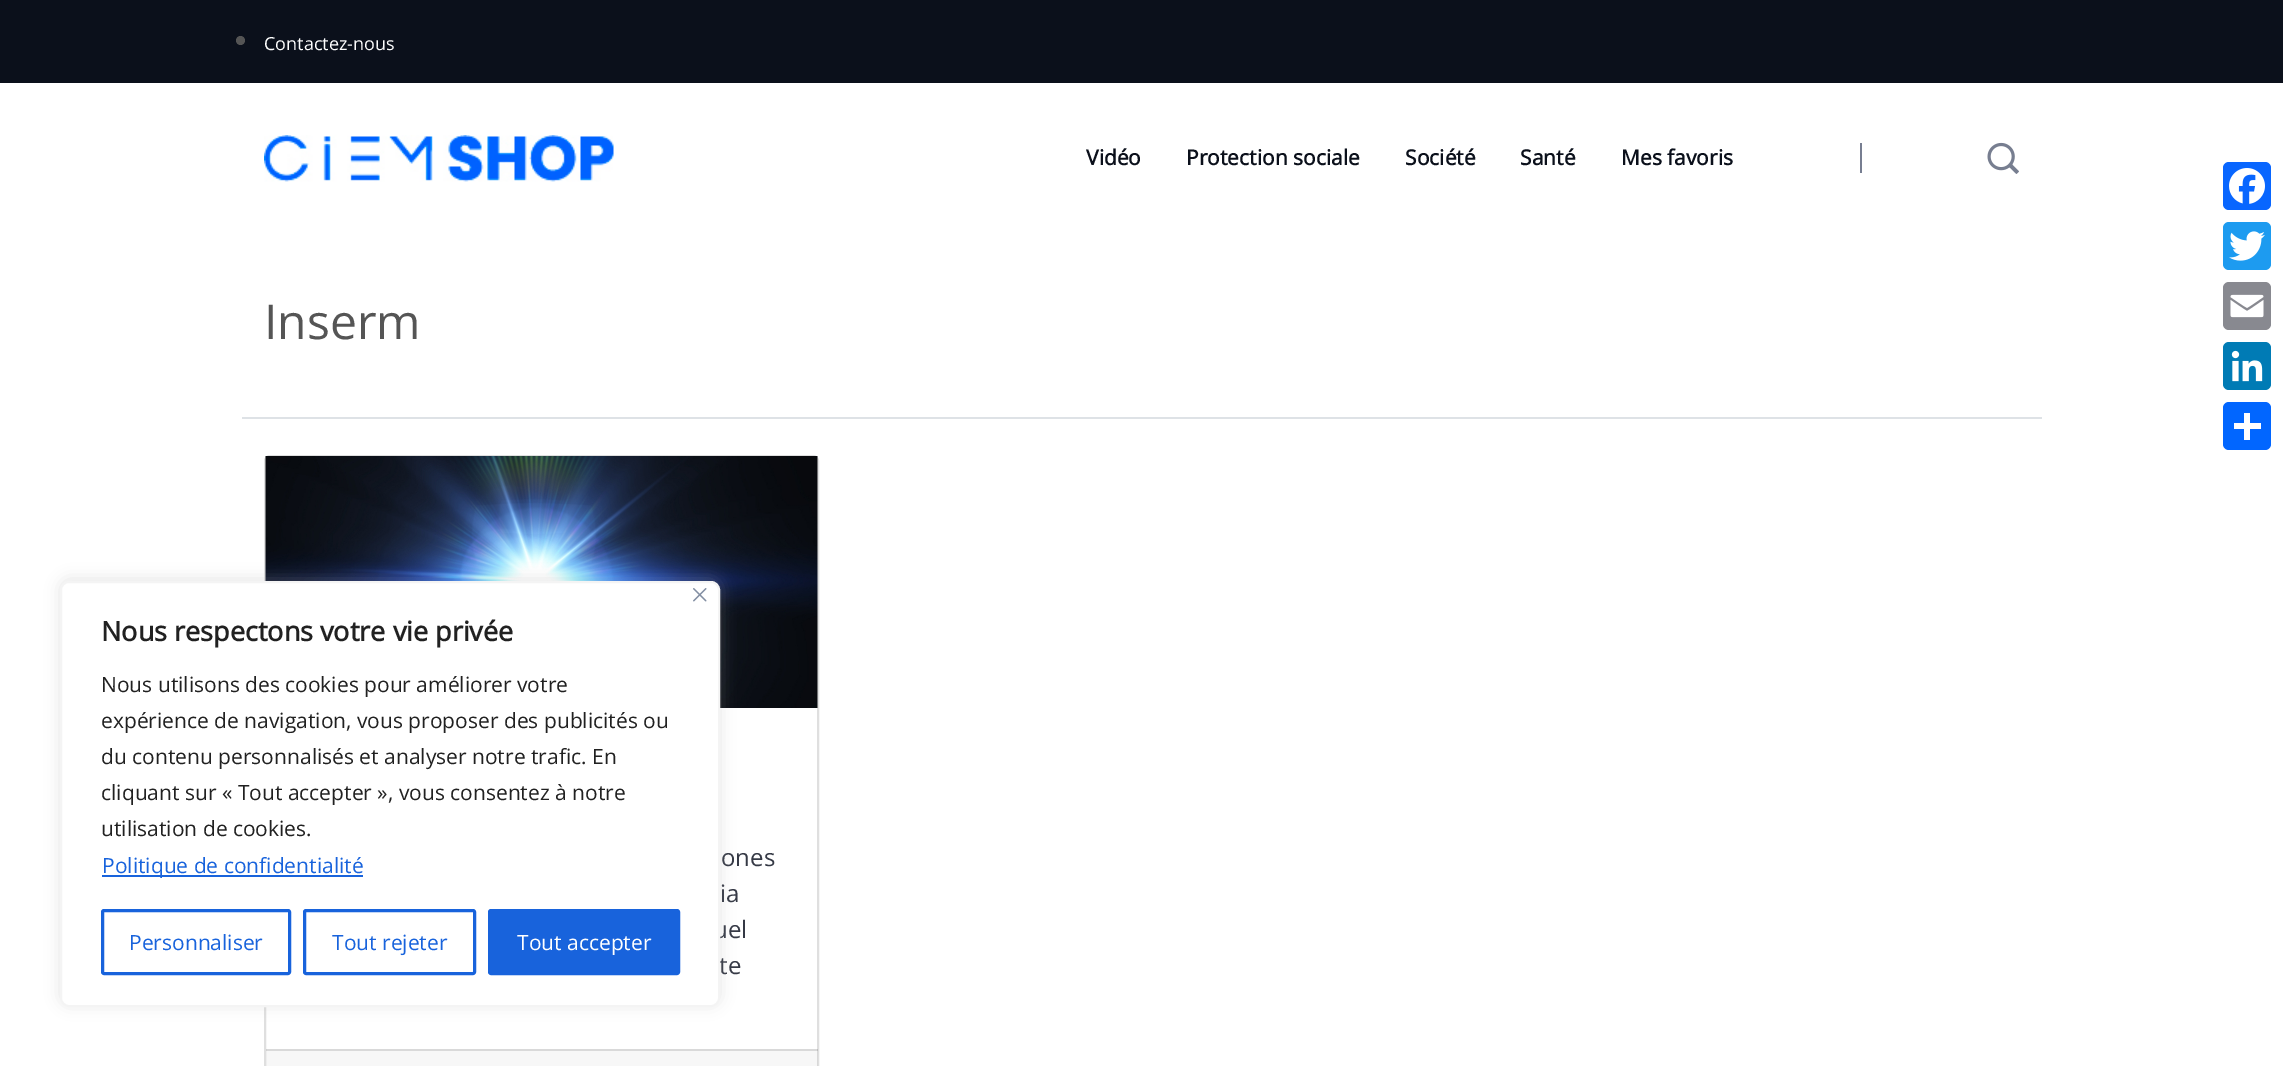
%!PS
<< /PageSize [2283 1066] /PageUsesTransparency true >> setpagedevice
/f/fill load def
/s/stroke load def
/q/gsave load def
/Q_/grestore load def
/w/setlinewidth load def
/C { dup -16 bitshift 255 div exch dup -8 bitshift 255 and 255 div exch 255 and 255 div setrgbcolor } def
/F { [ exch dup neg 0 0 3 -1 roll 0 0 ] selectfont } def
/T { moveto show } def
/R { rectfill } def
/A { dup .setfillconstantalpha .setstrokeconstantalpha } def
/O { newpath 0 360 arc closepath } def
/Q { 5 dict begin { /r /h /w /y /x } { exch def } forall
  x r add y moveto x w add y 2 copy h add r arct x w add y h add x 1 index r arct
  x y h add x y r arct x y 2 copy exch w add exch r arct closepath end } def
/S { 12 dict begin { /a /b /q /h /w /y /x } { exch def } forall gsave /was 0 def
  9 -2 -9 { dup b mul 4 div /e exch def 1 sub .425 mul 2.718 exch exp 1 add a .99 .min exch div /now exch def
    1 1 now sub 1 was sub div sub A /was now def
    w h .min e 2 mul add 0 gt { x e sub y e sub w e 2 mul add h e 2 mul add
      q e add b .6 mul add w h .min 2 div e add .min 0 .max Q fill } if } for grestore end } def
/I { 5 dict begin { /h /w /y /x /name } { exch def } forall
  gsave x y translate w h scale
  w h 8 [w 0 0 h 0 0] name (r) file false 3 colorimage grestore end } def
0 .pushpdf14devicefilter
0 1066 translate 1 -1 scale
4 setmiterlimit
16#FFFFFF C
0 0 2283 1066 R
16#0B101B C
0 0 2283 83 R
16#555555 C
240.5 40.5 4.5 O f
/OpenSans-Regular 18 F
16#FFFFFF C
(Contactez-nous) 264 50 T
(1.rgb) 264 135 350 47 I
/OpenSans-Bold 21 F
16#0B101B C
(Vidéo) 1086 165 T
(Protection sociale) 1186 165 T
(Société) 1405 165 T
(Santé) 1520 165 T
(Mes favoris) 1621 165 T
16#777E91 C
1860 143 2 30 R
(2.rgb) 1987 142 32 32 I
/OpenSans-Regular 48 F
16#555555 C
(Inserm) 264 339 T
16#DEE2E6 C
242 417 1800 2 R
16#DFDFDF C
2 w
265 456 553 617 5 Q s
(3.rgb) 265 456 553 252 I
/OpenSans-Regular 24 F
16#353945 C
(ones) 721 866 T
(ia) 720 902 T
(uel) 713 938 T
(te) 719 974 T
0.03 A
16#000000 C
266 1049 552 17 R
0.12 A
266 1049 552 2 R
1 A
16#0866FF C
2223 162 48 48 6 Q f
(4.rgb) 2229 168 36 36 I
16#1D9BF0 C
2223 222 48 48 6 Q f
(5.rgb) 2229 231 36 30 I
16#888990 C
2223 282 48 48 6 Q f
(6.rgb) 2230 294 34 24 I
16#007BB5 C
2223 342 48 48 6 Q f
(7.rgb) 2231 350 32 32 I
16#0166FF C
2223 402 48 48 6 Q f
16#FFFFFF C
2244 413 6 27 R
2234 423 27 6 R
16#ACABAB C
60 579 660 426 9 7.5 .3 S
16#FFFFFF C
61 582 658 424 8 Q q f Q_
16#F4F4F4 C
s
(8.rgb) 693 588 14 14 I
/OpenSans-Bold 27 F
16#212121 C
(Nous respectons votre vie privée) 101 641 T
/OpenSans-Regular 21 F
(Nous utilisons des cookies pour améliorer votre) 101 692 T
(expérience de navigation, vous proposer des publicités ou) 101 728 T
(du contenu personnalisés et analyser notre trafic. En) 101 764 T
(cliquant sur « Tout accepter », vous consentez à notre) 101 800 T
(utilisation de cookies.) 101 836 T
16#1863DC C
102 875 261 2 R
(Politique de confidentialité) 102 873 T
3 w
102.5 910.5 187 63 1.5 Q s
(Personnaliser) 129 950 T
304.5 910.5 170 63 1.5 Q s
(Tout rejeter) 332 950 T
489.5 910.5 189 63 1.5 Q q f Q_
s
16#FFFFFF C
(Tout accepter) 517 950 T
.poppdf14devicefilter showpage
